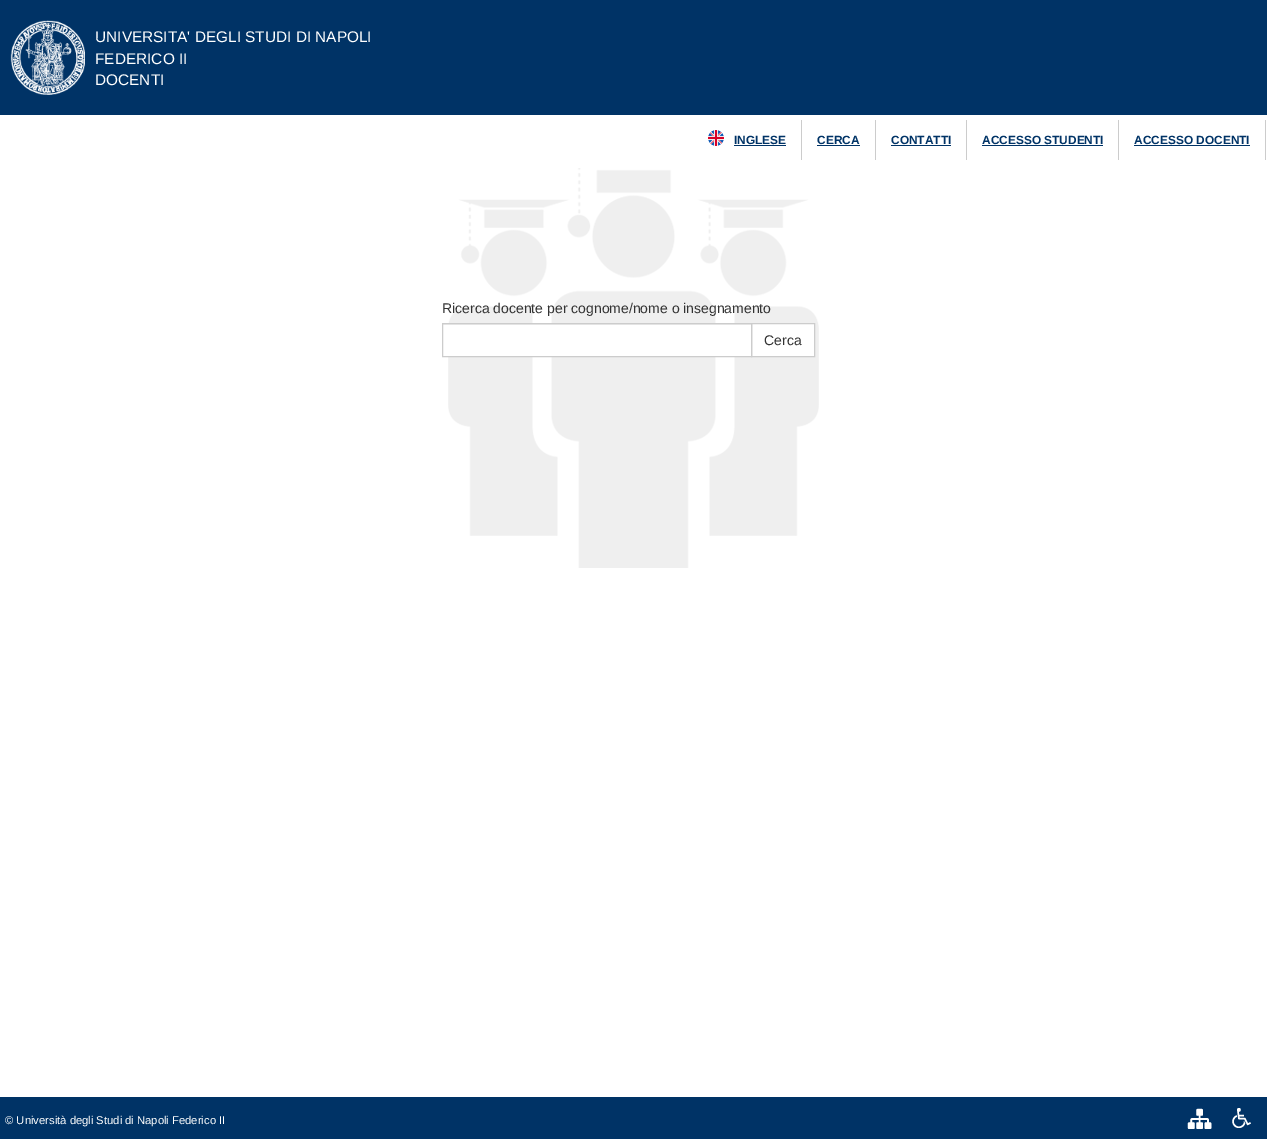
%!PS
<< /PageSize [1267 1139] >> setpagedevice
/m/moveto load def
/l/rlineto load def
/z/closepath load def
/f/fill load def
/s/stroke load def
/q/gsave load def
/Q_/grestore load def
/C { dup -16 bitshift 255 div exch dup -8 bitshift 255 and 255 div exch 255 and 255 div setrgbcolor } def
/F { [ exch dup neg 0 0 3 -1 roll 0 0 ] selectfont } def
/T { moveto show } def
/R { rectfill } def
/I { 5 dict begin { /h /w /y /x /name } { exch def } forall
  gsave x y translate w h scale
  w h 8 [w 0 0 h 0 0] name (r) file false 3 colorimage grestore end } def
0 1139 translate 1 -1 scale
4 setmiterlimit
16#FFFFFF C
0 0 1267 1139 R
16#003366 C
0 0 1267 115 R
(1.rgb) 10 20 75 75 I
/LiberationSans-Regular 15.4 F
16#FFFFFF C
(UNIVERSITA' DEGLI STUDI DI NAPOLI) 95 42 T
(FEDERICO II) 95 64 T
(DOCENTI) 95 85 T
16#CCCCCC C
801 120 1 40 R
(2.rgb) 708 130 16 16 I
/LiberationSans-Bold 11.9 F
16#003366 C
(INGLESE) 734 144 T
734 145 52 1 R
16#CCCCCC C
875 120 1 40 R
16#003366 C
(CERCA) 817 144 T
817 145 43 1 R
16#CCCCCC C
966 120 1 40 R
16#003366 C
(CONTATTI) 891 144 T
891 145 60 1 R
16#CCCCCC C
1118 120 1 40 R
16#003366 C
(ACCESSO STUDENTI) 982 144 T
982 145 121 1 R
16#CCCCCC C
1265 120 1 40 R
16#003366 C
(ACCESSO DOCENTI) 1134 144 T
1134 145 116 1 R
(3.rgb) 448 168 371 400 I
/LiberationSans-Regular 14 F
16#333333 C
(Ricerca docente per cognome/nome o insegnamento) 442 313 T
16#FFFFFF C
448 325 303 31 R
16#ECECEC C
443 324 308 1 R
16#FFFFFF C
751.5 323.5 m 63 0 l 0 33 l -63 0 l z q f Q_
16#CCCCCC C
s
442.5 323.5 309 33 rectstroke
16#333333 C
(Cerca) 764 345 T
16#003366 C
0 1097 1267 42 R
/LiberationSans-Regular 11.25 F
16#FFFFFF C
(© Università degli Studi di Napoli Federico II) 5 1124 T
(4.rgb) 1187 1108 25 21 I
(5.rgb) 1232 1108 19 20 I
showpage
